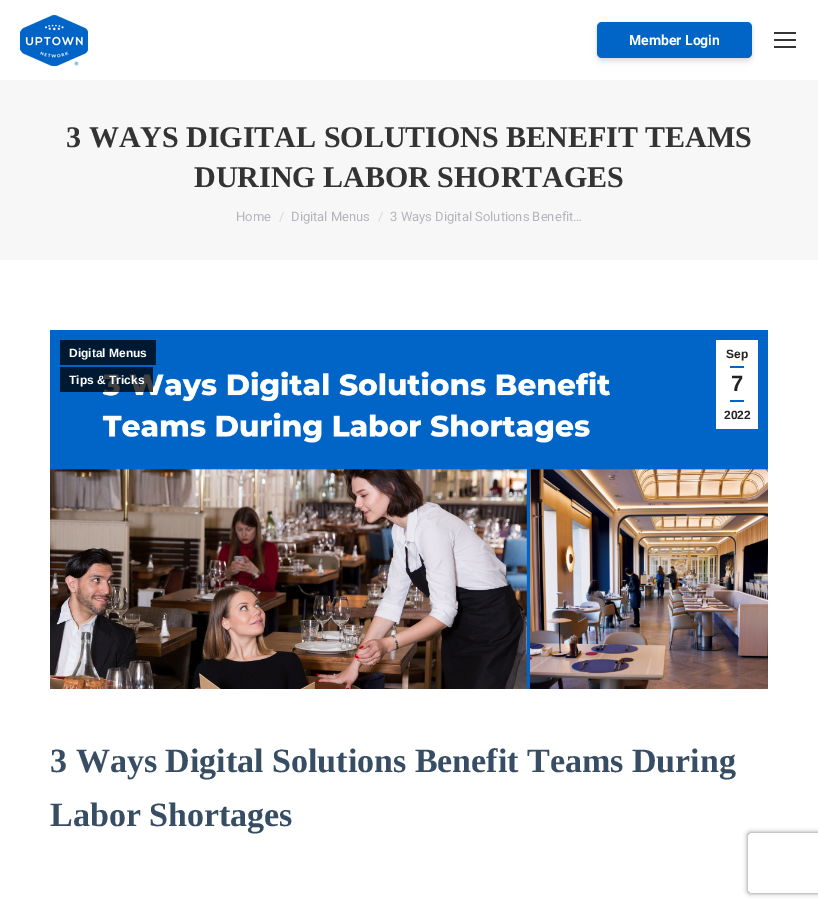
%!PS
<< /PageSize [818 907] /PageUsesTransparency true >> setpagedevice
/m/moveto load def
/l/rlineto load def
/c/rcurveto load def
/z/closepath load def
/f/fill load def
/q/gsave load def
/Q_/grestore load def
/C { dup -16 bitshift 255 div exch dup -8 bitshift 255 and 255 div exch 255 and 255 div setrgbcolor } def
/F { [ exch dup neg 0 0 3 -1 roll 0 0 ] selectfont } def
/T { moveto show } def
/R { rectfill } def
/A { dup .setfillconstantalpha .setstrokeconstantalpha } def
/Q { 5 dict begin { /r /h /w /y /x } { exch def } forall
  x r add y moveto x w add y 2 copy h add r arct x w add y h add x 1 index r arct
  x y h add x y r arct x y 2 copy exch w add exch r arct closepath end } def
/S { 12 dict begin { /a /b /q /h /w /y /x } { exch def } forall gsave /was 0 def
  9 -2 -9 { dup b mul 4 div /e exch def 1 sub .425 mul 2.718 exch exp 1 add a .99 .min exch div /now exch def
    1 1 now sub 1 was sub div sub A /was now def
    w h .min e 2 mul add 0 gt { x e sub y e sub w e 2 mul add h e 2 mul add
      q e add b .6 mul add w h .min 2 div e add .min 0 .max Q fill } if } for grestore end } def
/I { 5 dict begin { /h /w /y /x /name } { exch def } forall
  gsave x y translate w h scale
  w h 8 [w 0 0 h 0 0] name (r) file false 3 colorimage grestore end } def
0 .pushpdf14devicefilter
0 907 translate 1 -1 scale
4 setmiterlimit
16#FFFFFF C
0 0 818 907 R
(1.rgb) 20 15 68 51 I
16#000000 C
597 23 155 36 5 1.5 .08 S
16#32325D C
597 26 155 36 5 3 .11 S
16#0165C7 C
597 22 155 36 5 Q f
/Roboto-Bold 14 F
16#FFFFFF C
(Member Login) 629 45 T
16#333333 C
774 32 22 2 R
774 39 22 2 R
774 46 22 2 R
16#F7F7F7 C
0 80 818 180 R
/LiberationSerif-Bold 30 F
16#333333 C
(3 WAYS DIGITAL SOLUTIONS BENEFIT TEAMS) 66 147 T
(DURING LABOR SHORTAGES) 194 187 T
/Roboto-Regular 13 F
16#B4B5BB C
(Home) 236 221 T
16#D6D6D9 C
(/) 279 221 T
16#B4B5BB C
(Digital Menus) 291 221 T
16#D6D6D9 C
(/) 378 221 T
16#B4B5BB C
(3 Ways Digital Solutions Benefit…) 390 221 T
(2.rgb) 50 330 718 359 I
16#001932 C
60 340 96 25 R
/LiberationSans-Bold 12 F
16#FFFFFF C
(Digital Menus) 69 357 T
0.75 A
16#000000 C
60 367 93 25 R
1 A
16#FFFFFF C
(Tips & Tricks) 69 384 T
716 340 42 89 R
16#222222 C
(Sep) 726 358 T
16#0165C7 C
730 366 14 2 R
/LiberationSans-Bold 22 F
16#222222 C
(7) 731 391 T
16#0165C7 C
730 400 14 2 R
/LiberationSans-Bold 12 F
16#222222 C
(2022) 724 419 T
/LiberationSerif-Bold 34 F
16#374D63 C
(3 Ways Digital Solutions Benefit Teams During) 50 772 T
(Labor Shortages) 50 826 T
q
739 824 m 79 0 l 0 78 l -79 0 l z 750 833 m 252 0 l 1 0 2 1 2 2 c 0 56 l 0 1 -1 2 -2 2 c -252 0 l -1 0 -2 -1 -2 -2 c 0 -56 l 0 -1 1 -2 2 -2 c z eoclip newpath
16#808080 C
748 833 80 60 2 2.5 1 S
Q_
.poppdf14devicefilter showpage
